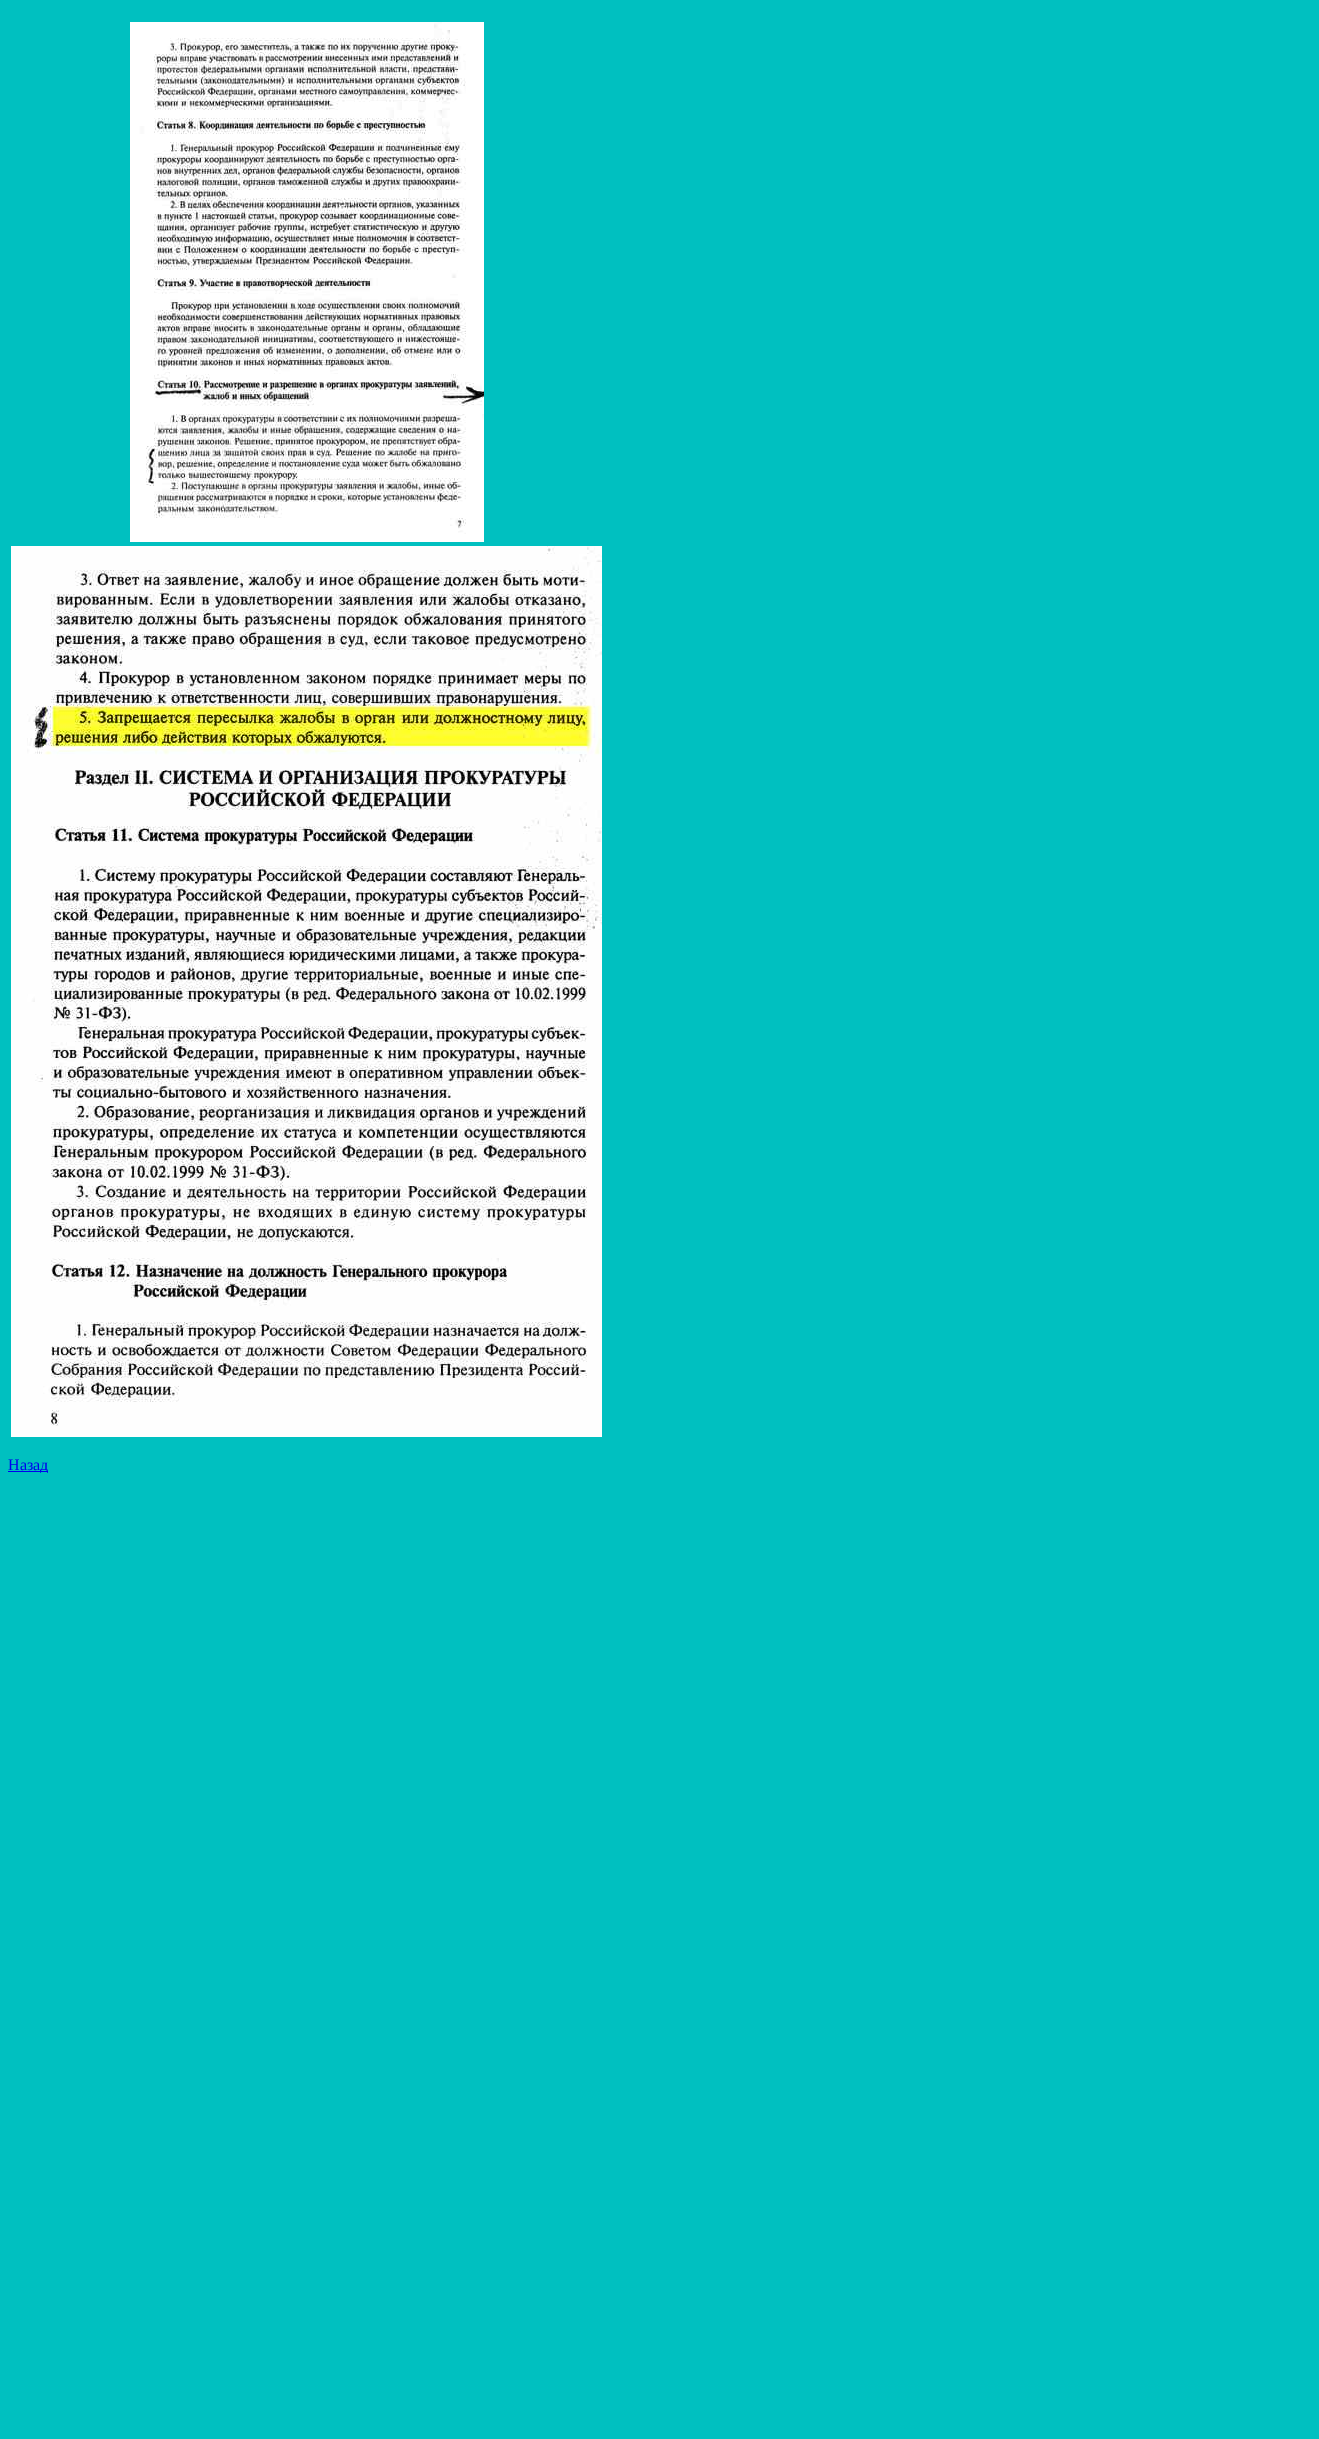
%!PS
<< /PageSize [1319 2439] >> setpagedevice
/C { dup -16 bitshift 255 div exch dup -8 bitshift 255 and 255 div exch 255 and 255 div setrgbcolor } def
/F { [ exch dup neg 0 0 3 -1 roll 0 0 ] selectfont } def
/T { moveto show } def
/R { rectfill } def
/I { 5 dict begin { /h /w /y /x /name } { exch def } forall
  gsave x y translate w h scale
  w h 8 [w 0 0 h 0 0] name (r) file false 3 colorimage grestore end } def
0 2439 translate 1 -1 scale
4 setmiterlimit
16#00C0C0 C
0 0 1319 2439 R
(1.rgb) 130 22 354 520 I
(2.rgb) 11 546 591 891 I
16#0000EE C
8 1471 40 1 R
/LiberationSerif-Regular 16 F
(Назад) 8 1470 T
showpage
